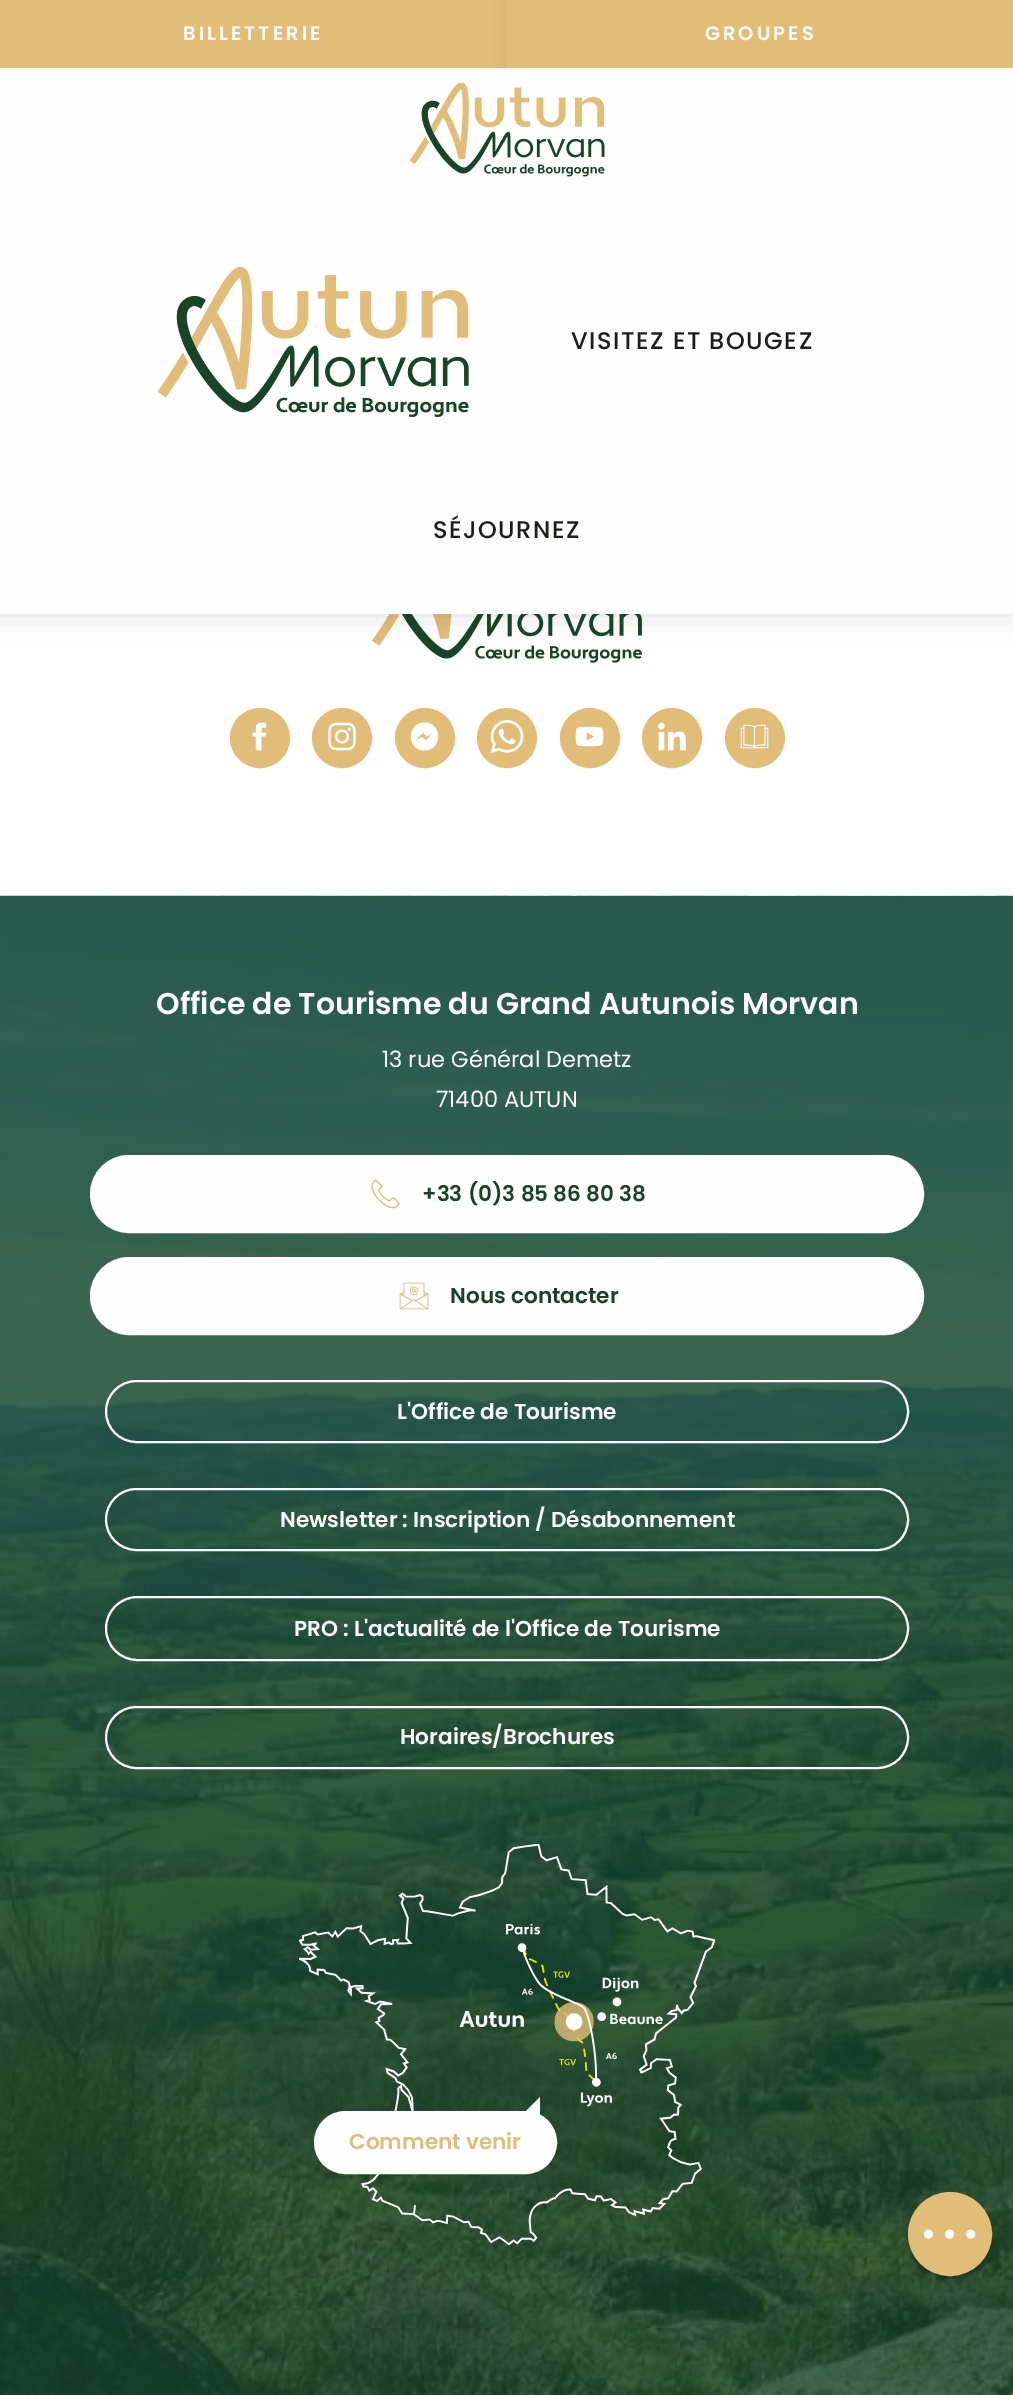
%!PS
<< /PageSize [1013 2395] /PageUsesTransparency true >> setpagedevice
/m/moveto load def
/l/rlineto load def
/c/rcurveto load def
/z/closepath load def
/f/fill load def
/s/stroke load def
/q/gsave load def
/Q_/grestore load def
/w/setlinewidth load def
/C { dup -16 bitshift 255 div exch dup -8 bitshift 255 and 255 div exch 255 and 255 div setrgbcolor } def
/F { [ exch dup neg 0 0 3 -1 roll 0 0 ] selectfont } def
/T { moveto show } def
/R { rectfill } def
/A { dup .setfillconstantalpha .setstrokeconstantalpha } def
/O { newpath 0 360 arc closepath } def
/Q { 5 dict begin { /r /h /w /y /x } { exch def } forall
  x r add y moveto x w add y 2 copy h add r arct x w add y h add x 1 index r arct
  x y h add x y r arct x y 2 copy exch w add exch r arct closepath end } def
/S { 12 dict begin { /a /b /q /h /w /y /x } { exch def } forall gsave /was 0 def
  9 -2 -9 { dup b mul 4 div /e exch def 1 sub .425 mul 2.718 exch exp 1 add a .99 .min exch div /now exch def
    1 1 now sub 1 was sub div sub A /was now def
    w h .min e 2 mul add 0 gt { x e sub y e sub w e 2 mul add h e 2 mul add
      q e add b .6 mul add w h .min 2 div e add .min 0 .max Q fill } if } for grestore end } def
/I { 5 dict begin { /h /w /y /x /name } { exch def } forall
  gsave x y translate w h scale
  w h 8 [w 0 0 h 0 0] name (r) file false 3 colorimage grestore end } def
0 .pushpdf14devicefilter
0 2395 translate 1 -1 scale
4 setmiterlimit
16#FFFFFF C
0 0 1013 2395 R
(4.rgb) 372 614 270 49 I
16#1D1D1B C
-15 41 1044 573 0 15 .15 S
16#E2BD78 C
0 0 507 68 R
16#FEFEFE C
0 68 507 3 R
/Poppins-SemiBold 19.5 F
183 40 m 3 0 (BILLETTERIE) ashow
16#1D1D1B C
507 0 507 71 0 7.5 .08 S
16#E2BD78 C
507 0 506 68 R
16#FEFEFE C
507 68 506 3 R
705 40 m 3 0 (GROUPES) ashow
0 200 1013 414 R
(1.rgb) 158 267 311 150 I
/Poppins-Medium 24 F
16#1D1D1B C
571 349 m 1.5 0 (VISITEZ ET BOUGEZ) ashow
433 538 m 1.5 0 (SÉJOURNEZ) ashow
16#FEFEFE C
0 71 1013 129 R
(2.rgb) 410 83 195 94 I
(11.rgb) 0 895 1013 1500 I
16#000000 C
909 2198 81 81 40.5 4 .3 S
16#E2BD78 C
950 2234 41 O q f Q_
2 w
s
(3.rgb) 923 2229 53 10 I
260 738 28.5 O q f Q_
3 w
s
(5.rgb) 252 722 15 29 I
342 738 28.5 O q f Q_
s
(6.rgb) 328 722 28 29 I
425 738 28.5 O q f Q_
s
16#FEFEFE C
424.5 722.5 m -18 0 -18 28 0 28 c 18 0 18 -28 0 -28 c z 426 740.5 m -3.5 -3.5 l -7 3.5 l 7.5 -8 l 3.5 4 l 7 -4 l z f
16#E2BD78 C
507 738 28.5 O q f Q_
s
(7.rgb) 490 720 34 33 I
590 738 28.5 O q f Q_
s
(8.rgb) 575 726 29 21 I
672 738 28.5 O q f Q_
s
(9.rgb) 658 722 28 29 I
755 738 28.5 O q f Q_
s
(10.rgb) 740 724 29 25 I
/Poppins-SemiBold 30 F
16#FEFEFE C
(Office de Tourisme du Grand Autunois Morvan) 156 1014 T
/Poppins-Regular 22.5 F
(13 rue Général Demetz) 382 1067 T
(71400 AUTUN) 436 1107 T
91 1156 832 76 38 Q q f Q_
2 w
s
(12.rgb) 371 1179 29 30 I
/Poppins-SemiBold 21.6 F
16#174426 C
(+33 \(0\)3 85 86 80 38) 422 1201 T
16#FEFEFE C
91 1258 832 76 38 Q q f Q_
s
(13.rgb) 399 1282 30 28 I
16#174426 C
(Nous contacter) 450 1303 T
16#FEFEFE C
106 1381 802 61 30.5 Q s
(L'Office de Tourisme) 397 1419 T
106 1489 802 61 30.5 Q s
(Newsletter : Inscription / Désabonnement) 280 1527 T
106 1597 802 63 31.5 Q s
(PRO : L'actualité de l'Office de Tourisme) 294 1636 T
106 1707 802 61 30.5 Q s
(Horaires/Brochures) 400 1744 T
(14.rgb) 299 1844 417 402 I
315 2112 241 61 30.5 Q q f Q_
s
540 2097 m 0 24 l -12 -12 l z f
540 2121 m -24 0 l 12 -12 l z f
16#E2BD78 C
(Comment venir) 349 2149 T
.poppdf14devicefilter showpage
